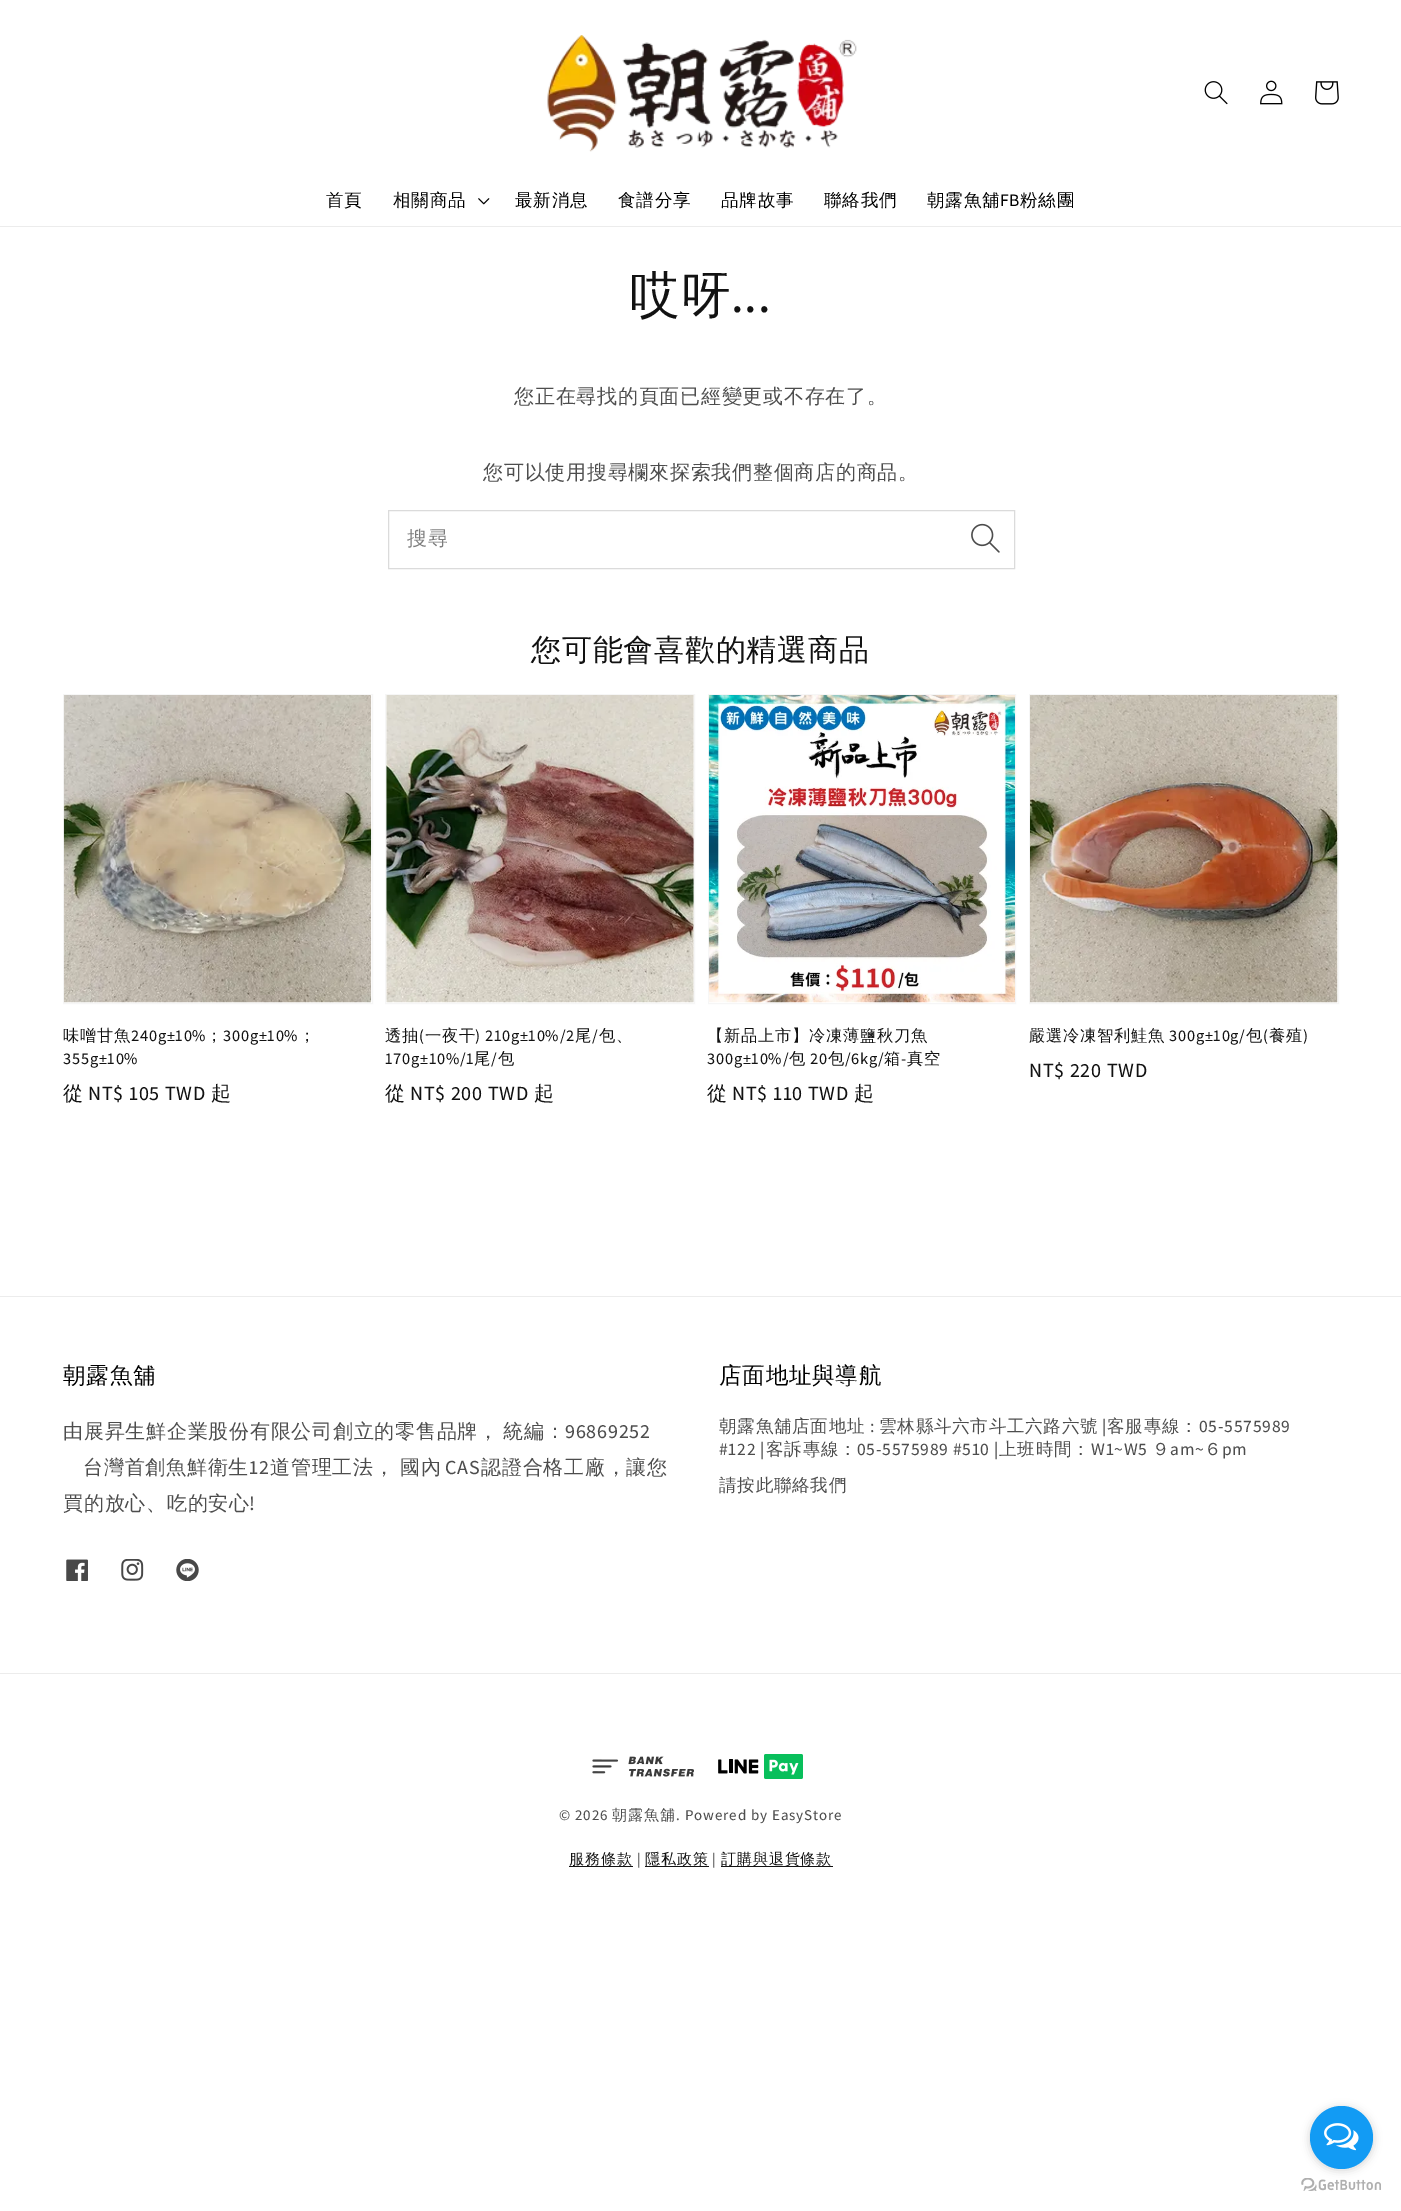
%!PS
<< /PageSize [1401 2211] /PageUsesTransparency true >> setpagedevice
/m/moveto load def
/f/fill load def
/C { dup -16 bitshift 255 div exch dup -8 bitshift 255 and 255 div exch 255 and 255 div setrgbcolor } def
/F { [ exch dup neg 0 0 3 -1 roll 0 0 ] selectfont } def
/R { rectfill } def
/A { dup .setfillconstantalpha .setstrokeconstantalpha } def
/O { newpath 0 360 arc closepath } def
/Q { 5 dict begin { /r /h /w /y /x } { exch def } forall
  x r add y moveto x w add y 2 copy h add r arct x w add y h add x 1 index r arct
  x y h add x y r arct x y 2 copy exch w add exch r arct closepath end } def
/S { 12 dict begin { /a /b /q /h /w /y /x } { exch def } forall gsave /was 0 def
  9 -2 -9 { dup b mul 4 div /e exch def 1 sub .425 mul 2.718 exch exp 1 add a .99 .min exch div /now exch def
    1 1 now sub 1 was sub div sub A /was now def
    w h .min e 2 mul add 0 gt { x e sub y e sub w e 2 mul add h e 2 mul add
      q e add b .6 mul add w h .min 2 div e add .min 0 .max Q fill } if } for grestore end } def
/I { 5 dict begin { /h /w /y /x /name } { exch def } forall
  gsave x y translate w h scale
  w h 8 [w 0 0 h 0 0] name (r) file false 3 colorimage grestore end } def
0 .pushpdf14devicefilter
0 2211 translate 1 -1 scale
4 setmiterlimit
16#FFFFFF C
0 0 1401 2211 R
16#ECECEC C
0 226 1401 1 R
(1.rgb) 547 35 310 117 I
(2.rgb) 1204 81 24 24 I
(3.rgb) 1260 80 23 25 I
(4.rgb) 1315 81 24 24 I
/WenQuanYiZenHei-Medium 17.5 F
16#000000 C
326 206 m .75 0 (首頁) ashow
393 206 m .75 0 (相關商品) ashow
(5.rgb) 478 198 12 7 I
515 206 m .75 0 (最新消息) ashow
618 206 m .75 0 (食譜分享) ashow
721 206 m .75 0 (品牌故事) ashow
824 206 m .75 0 (聯絡我們) ashow
927 206 m .75 0 (朝露魚舖) ashow
/Assistant-Medium 17.5 F
1000 206 m .75 0 (FB) ashow
/WenQuanYiZenHei-Medium 17.5 F
1020 206 m .75 0 (粉絲團) ashow
/WenQuanYiZenHei-Medium 50 F
16#121212 C
630 312 m .75 0 (哎呀) ashow
/Assistant-Medium 50 F
731 312 m .75 0 (...) ashow
/WenQuanYiZenHei-Medium 20 F
16#4D4D4D C
514 403 m .75 0 (您正在尋找的頁面已經變更或不存在了。) ashow
483 479 m .75 0 (您可以使用搜尋欄來探索我們整個商店的商品。) ashow
16#DBDBDB C
388.5 510.5 626 58 rectstroke
16#7D7D7D C
407 545 m 1 0 (搜尋) ashow
(6.rgb) 971 523 29 30 I
/WenQuanYiZenHei-Medium 30 F
16#121212 C
531 660 m .75 0 (您可能會喜歡的精選商品) ashow
16#F6F6F6 C
63.5 694.5 309 309 rectstroke
(7.rgb) 63 695 309 308 I
/WenQuanYiZenHei-Medium 16.25 F
16#121212 C
63 1041 m .75 0 (味噌甘魚) ashow
/Assistant-Medium 16.25 F
131 1041 m .75 0 (240g±10%) ashow
/WenQuanYiZenHei-Medium 16.25 F
206 1041 m .75 0 (；) ashow
/Assistant-Medium 16.25 F
223 1041 m .75 0 (300g±10%) ashow
/WenQuanYiZenHei-Medium 16.25 F
299 1041 m .75 0 (；) ashow
/Assistant-Medium 16.25 F
63 1064 m .75 0 (355g±10%) ashow
/WenQuanYiZenHei-Medium 20 F
63 1100 m .75 0 (從) ashow
/Assistant-Medium 20 F
88 1100 m .75 0 (NT$ 105 TWD) ashow
/WenQuanYiZenHei-Medium 20 F
211 1100 m .75 0 (起) ashow
16#F6F6F6 C
385.5 694.5 309 309 rectstroke
(8.rgb) 386 695 308 308 I
/WenQuanYiZenHei-Medium 16.25 F
16#121212 C
385 1041 m .75 0 (透抽 一夜干) ashow
575 1041 m .75 0 (尾) ashow
599 1041 m .75 0 (包、) ashow
/Assistant-Medium 16.25 F
419 1041 m .75 0 (\() ashow
475 1041 m .75 0 (\) 210g±10%/2) ashow
592 1041 m .75 0 (/) ashow
385 1064 m .75 0 (170g±10%/1) ashow
/WenQuanYiZenHei-Medium 16.25 F
474 1064 m .75 0 (尾) ashow
/Assistant-Medium 16.25 F
491 1064 m .75 0 (/) ashow
/WenQuanYiZenHei-Medium 16.25 F
498 1064 m .75 0 (包) ashow
/WenQuanYiZenHei-Medium 20 F
385 1100 m .75 0 (從) ashow
/Assistant-Medium 20 F
410 1100 m .75 0 (NT$ 200 TWD) ashow
/WenQuanYiZenHei-Medium 20 F
534 1100 m .75 0 (起) ashow
16#F6F6F6 C
708.5 694.5 307 309 rectstroke
(9.rgb) 708 695 307 308 I
/WenQuanYiZenHei-Medium 16.25 F
16#121212 C
707 1041 m .75 0 (【新品上市】冷凍薄鹽秋刀魚) ashow
/Assistant-Medium 16.25 F
707 1064 m .75 0 (300g±10%/) ashow
/WenQuanYiZenHei-Medium 16.25 F
789 1064 m .75 0 (包) ashow
/Assistant-Medium 16.25 F
810 1064 m .75 0 (20) ashow
/WenQuanYiZenHei-Medium 16.25 F
828 1064 m .75 0 (包) ashow
/Assistant-Medium 16.25 F
845 1064 m .75 0 (/6kg/) ashow
/WenQuanYiZenHei-Medium 16.25 F
884 1064 m .75 0 (箱 真空) ashow
/Assistant-Medium 16.25 F
901 1064 m .75 0 (-) ashow
/WenQuanYiZenHei-Medium 20 F
707 1100 m .75 0 (從) ashow
/Assistant-Medium 20 F
732 1100 m .75 0 (NT$ 110 TWD) ashow
/WenQuanYiZenHei-Medium 20 F
854 1100 m .75 0 (起) ashow
16#F6F6F6 C
1029.5 694.5 309 309 rectstroke
(10.rgb) 1030 695 308 308 I
/WenQuanYiZenHei-Medium 16.25 F
16#121212 C
1029 1041 m .75 0 (嚴選冷凍智利鮭魚) ashow
/Assistant-Medium 16.25 F
1169 1041 m .75 0 (300g±10g/) ashow
/WenQuanYiZenHei-Medium 16.25 F
1246 1041 m .75 0 (包 養殖) ashow
/Assistant-Medium 16.25 F
1263 1041 m .75 0 (\() ashow
1303 1041 m .75 0 (\)) ashow
/Assistant-Medium 20 F
1029 1077 m .75 0 (NT$ 220 TWD) ashow
16#ECECEC C
0 1296 1401 1 R
/WenQuanYiZenHei-Medium 22.5 F
16#000000 C
63 1383 m .75 0 (朝露魚舖) ashow
/WenQuanYiZenHei-Medium 20 F
16#4D4D4D C
63 1438 m -2 0 32 .75 0 (由展昇生鮮企業股份有限公司創立的零售品牌， 統編：) awidthshow
/Assistant-Medium 20 F
565 1438 m .75 0 (96869252) ashow
/WenQuanYiZenHei-Medium 20 F
83 1474 m .75 0 (台灣首創魚鮮衛生) ashow
/Assistant-Medium 20 F
249 1474 m .75 0 (12) ashow
/WenQuanYiZenHei-Medium 20 F
270 1474 m -1 0 32 .75 0 (道管理工法， 國內) awidthshow
/Assistant-Medium 20 F
445 1474 m .75 0 (CAS) ashow
/WenQuanYiZenHei-Medium 20 F
481 1474 m .75 0 (認證合格工廠，讓您) ashow
63 1510 m .75 0 (買的放心、吃的安心) ashow
/Assistant-Medium 20 F
249 1510 m .75 0 (!) ashow
(11.rgb) 66 1559 22 22 I
(12.rgb) 121 1559 23 22 I
(13.rgb) 176 1559 23 22 I
/WenQuanYiZenHei-Medium 22.5 F
16#000000 C
719 1383 m .75 0 (店面地址與導航) ashow
/WenQuanYiZenHei-Medium 17.5 F
16#4D4D4D C
719 1432 m .75 0 (朝露魚舖店面地址) ashow
/Assistant-Medium 17.5 F
870 1432 m .75 0 (:) ashow
/WenQuanYiZenHei-Medium 17.5 F
879 1432 m .75 0 (雲林縣斗六市斗工六路六號) ashow
/Assistant-Medium 17.5 F
1102 1432 m .75 0 (|) ashow
/WenQuanYiZenHei-Medium 17.5 F
1107 1432 m .75 0 (客服專線：) ashow
/Assistant-Medium 17.5 F
1199 1432 m .75 0 (05-5575989) ashow
719 1455 m .75 0 (#122 |) ashow
/WenQuanYiZenHei-Medium 17.5 F
766 1455 m .75 0 (客訴專線：) ashow
/Assistant-Medium 17.5 F
857 1455 m .75 0 (05-5575989 #510 |) ashow
/WenQuanYiZenHei-Medium 17.5 F
999 1455 m .75 0 (上班時間：) ashow
/Assistant-Medium 17.5 F
1091 1455 m .75 0 (W1~W5) ashow
/WenQuanYiZenHei-Medium 17.5 F
1152 1455 m .75 0 (９) ashow
/Assistant-Medium 17.5 F
1170 1455 m .75 0 (am~) ashow
/WenQuanYiZenHei-Medium 17.5 F
1204 1455 m .75 0 (６) ashow
/Assistant-Medium 17.5 F
1222 1455 m .75 0 (pm) ashow
/WenQuanYiZenHei-Medium 17.5 F
719 1491 m .75 0 (請按此聯絡我們) ashow
16#ECECEC C
0 1673 1401 1 R
(14.rgb) 592 1756 102 21 I
(15.rgb) 718 1754 85 25 I
/Assistant-Medium 15 F
16#4D4D4D C
559 1820 m .9 0 (© 2026) ashow
/WenQuanYiZenHei-Medium 15 F
612 1820 m .9 0 (朝露魚舖) ashow
/Assistant-Medium 15 F
676 1820 m .9 0 (. Powered by EasyStore) ashow
16#121212 C
569 1866 64 1 R
/WenQuanYiZenHei-Medium 15 F
569 1864 m .9 0 (服務條款) ashow
/Assistant-Medium 15 F
16#4D4D4D C
637 1864 m .9 0 (|) ashow
16#121212 C
645 1866 64 1 R
/WenQuanYiZenHei-Medium 15 F
645 1864 m .9 0 (隱私政策) ashow
/Assistant-Medium 15 F
16#4D4D4D C
712 1864 m .9 0 (|) ashow
16#121212 C
721 1866 112 1 R
/WenQuanYiZenHei-Medium 15 F
721 1864 m .9 0 (訂購與退貨條款) ashow
(17.rgb) 1301 2178 80 13 I
16#888888 C
1310 2108 63 62 31 4.5 .4 S
16#129BF4 C
1341.5 2137.5 31.5 O f
(16.rgb) 1324 2123 35 28 I
.poppdf14devicefilter showpage
